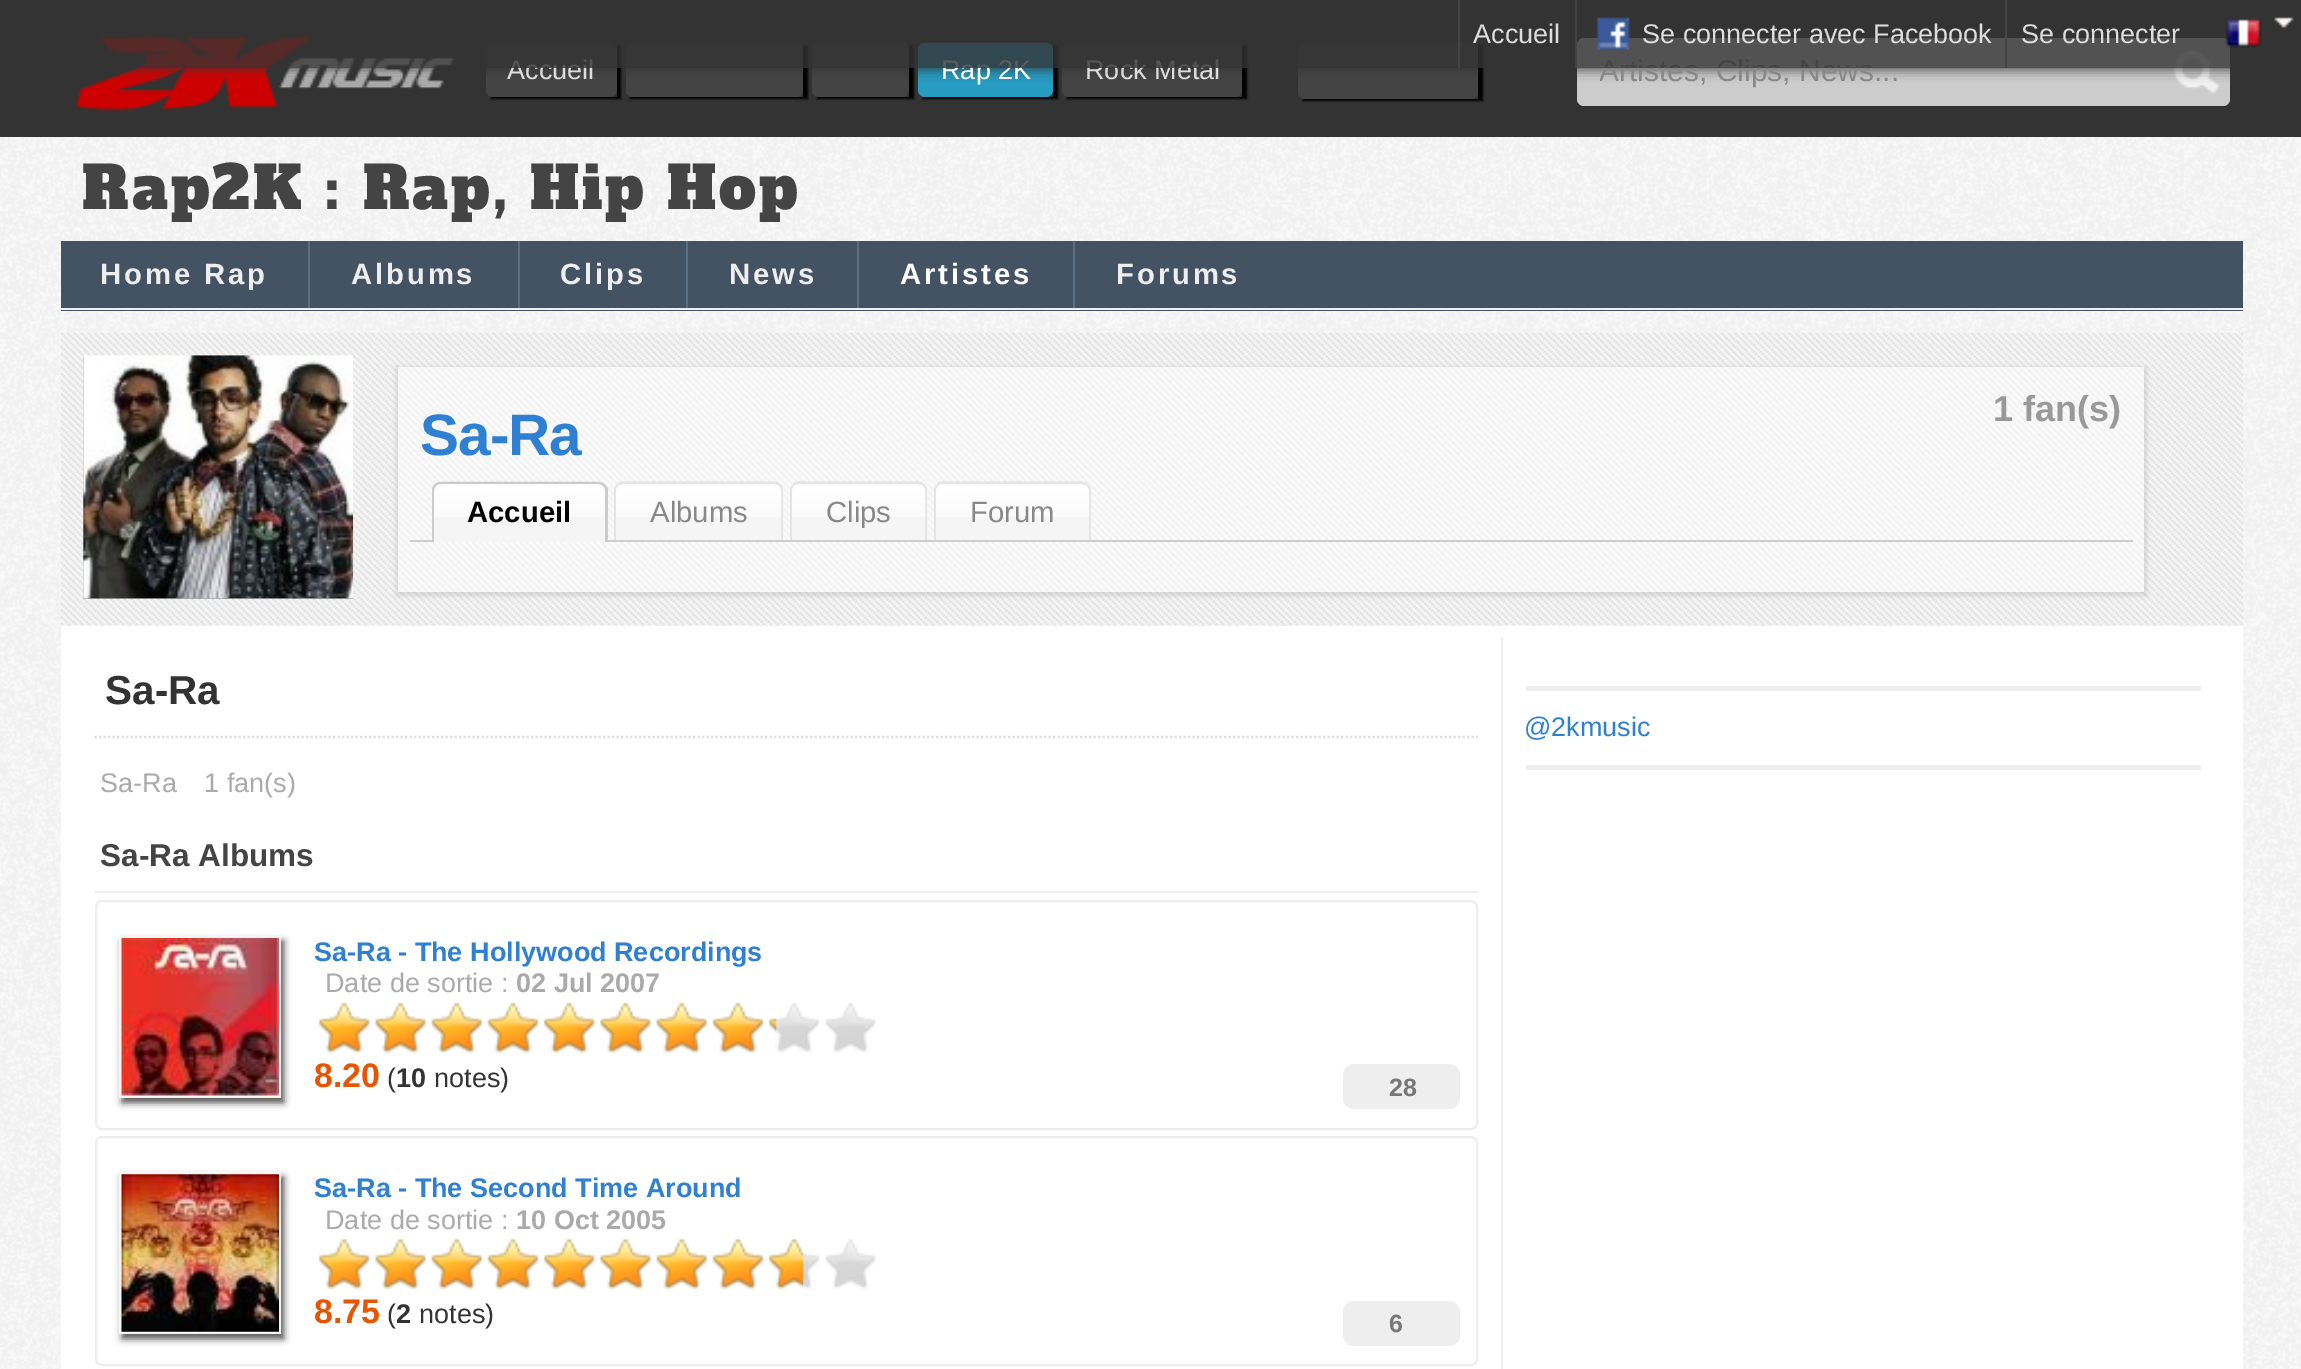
%!PS
<< /PageSize [2301 1369] /PageUsesTransparency true >> setpagedevice
/m/moveto load def
/l/rlineto load def
/c/rcurveto load def
/z/closepath load def
/f/fill load def
/s/stroke load def
/q/gsave load def
/Q_/grestore load def
/w/setlinewidth load def
/C { dup -16 bitshift 255 div exch dup -8 bitshift 255 and 255 div exch 255 and 255 div setrgbcolor } def
/F { [ exch dup neg 0 0 3 -1 roll 0 0 ] selectfont } def
/T { moveto show } def
/R { rectfill } def
/A { dup .setfillconstantalpha .setstrokeconstantalpha } def
/Q { 5 dict begin { /r /h /w /y /x } { exch def } forall
  x r add y moveto x w add y 2 copy h add r arct x w add y h add x 1 index r arct
  x y h add x y r arct x y 2 copy exch w add exch r arct closepath end } def
/S { 12 dict begin { /a /b /q /h /w /y /x } { exch def } forall gsave /was 0 def
  9 -2 -9 { dup b mul 4 div /e exch def 1 sub .425 mul 2.718 exch exp 1 add a .99 .min exch div /now exch def
    1 1 now sub 1 was sub div sub A /was now def
    w h .min e 2 mul add 0 gt { x e sub y e sub w e 2 mul add h e 2 mul add
      q e add b .6 mul add w h .min 2 div e add .min 0 .max Q fill } if } for grestore end } def
/I { 5 dict begin { /h /w /y /x /name } { exch def } forall
  gsave x y translate w h scale
  w h 8 [w 0 0 h 0 0] name (r) file false 3 colorimage grestore end } def
0 .pushpdf14devicefilter
0 1369 translate 1 -1 scale
4 setmiterlimit
16#FFFFFF C
0 0 2301 1369 R
(1.rgb) 0 137 2301 1232 I
16#333333 C
0 0 2301 137 R
(5.rgb) 76 35 379 76 I
16#444444 C
486 43 131 54 7 Q f
626 43 177 54 7 Q f
812 43 97 54 7 Q f
16#279CC3 C
918 43 135 54 7 Q f
16#444444 C
1062 43 180 54 7 Q f
1298 43 180 56 7 Q f
16#CCCCCC C
1577 38 653 68 7 Q f
(6.rgb) 2173 49 47 46 I
q
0 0 m 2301 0 l 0 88 l -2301 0 l z 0 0 m 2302 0 l 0 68 l -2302 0 l z eoclip newpath
16#333333 C
0 2 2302 68 0 5.5 .8 S
Q_
q
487 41 m 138 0 l 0 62 l -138 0 l z 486 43 m 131 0 l 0 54 l -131 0 l z eoclip newpath
16#000000 C
491 45 130 54 0 1 1 S
Q_
/LiberationSans-Regular 27 F
16#DDDDDD C
(Accueil) 507 79 T
q
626 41 m 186 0 l 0 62 l -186 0 l z 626 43 m 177 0 l 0 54 l -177 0 l z eoclip newpath
16#000000 C
630 45 178 54 0 1 1 S
Q_
q
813 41 m 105 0 l 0 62 l -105 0 l z 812 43 m 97 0 l 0 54 l -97 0 l z eoclip newpath
16#000000 C
817 45 97 54 0 1 1 S
Q_
q
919 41 m 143 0 l 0 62 l -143 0 l z 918 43 m 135 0 l 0 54 l -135 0 l z eoclip newpath
16#000000 C
923 45 135 54 0 1 1 S
Q_
16#FFFFFF C
(Rap 2K) 941 79 T
q
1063 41 m 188 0 l 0 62 l -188 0 l z 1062 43 m 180 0 l 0 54 l -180 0 l z eoclip newpath
16#000000 C
1067 45 180 54 0 1 1 S
Q_
16#DDDDDD C
(Rock Metal) 1085 79 T
q
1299 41 m 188 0 l 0 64 l -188 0 l z 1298 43 m 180 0 l 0 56 l -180 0 l z eoclip newpath
16#000000 C
1303 45 180 56 0 1 1 S
Q_
q
1600 38 562 68 rectclip
/LiberationSans-Regular 30 F
16#888888 C
(Artistes, Clips, News...) 1599 81 T
Q_
0.8 A
16#333333 C
100 35 2130 33 R
1 A
16#444444 C
1458 0 2 68 R
16#DDDDDD C
(Accueil) 1473 43 T
16#444444 C
1575 0 2 68 R
(2.rgb) 1596 17 34 34 I
16#DDDDDD C
(Se connecter avec Facebook) 1642 43 T
16#444444 C
2005 0 2 68 R
16#DDDDDD C
(Se connecter) 2021 43 T
(3.rgb) 2225 19 37 29 I
(4.rgb) 2274 17 20 11 I
/AlfaSlabOne-Regular 58.5 F
16#444444 C
82 209 m 2.9 0 (Rap2K : Rap, Hip Hop) ashow
16#445363 C
61 241 2182 70 R
16#EEEEEE C
61 308 2182 2 R
/LiberationSans-Bold 29.25 F
100 284 m 2.9 0 (Home Rap) ashow
16#596E83 C
308 241 2 67 R
16#EEEEEE C
351 284 m 2.9 0 (Albums) ashow
16#596E83 C
518 241 2 67 R
16#EEEEEE C
560 284 m 2.9 0 (Clips) ashow
16#596E83 C
686 241 2 67 R
16#EEEEEE C
729 284 m 2.9 0 (News) ashow
16#596E83 C
857 241 2 67 R
16#FFFFFF C
900 284 m 2.9 0 (Artistes) ashow
16#596E83 C
1073 241 2 67 R
16#EEEEEE C
1116 284 m 2.9 0 (Forums) ashow
(7.rgb) 61 332 2182 294 I
0.3 A
16#000000 C
83 356 270 243 R
1 A
(8.rgb) 83 355 271 244 I
q
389 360 m 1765 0 l 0 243 l -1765 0 l z 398 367 m 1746 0 l 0 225 l -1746 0 l z eoclip newpath
396 367 1751 229 0 2 .1 S
Q_
0.5 A
16#FFFFFF C
398 367 1746 225 R
/LiberationSans-Bold 58.5 F
1 A
16#2F80D2 C
420 455 m -1 0 (Sa-Ra) ashow
/LiberationSans-Bold 36 F
16#999999 C
(1 fan\(s\)) 1993 421 T
16#CCCCCC C
410 540 1723 2 R
16#F5F5F5 C
441 482 m 158 0 l 5 0 9 4 9 9 c 0 51 l -176 0 l 0 -51 l 0 -5 4 -9 9 -9 c z f
(9.rgb) 432 481 175 36 I
16#CCCCCC C
441 482 m 157 0 l 5 0 10 4 10 8 c 0 52 l -176 0 l 0 -52 l 0 -4 4 -8 9 -8 c z 441 484 m 157 0 l 4 0 7 3 7 6 c 0 52 l -171 0 l 0 -52 l 0 -3 3 -6 7 -6 c z eofill
/LiberationSans-Bold 29.25 F
16#000000 C
(Accueil) 467 522 T
16#F5F5F5 C
623 482 m 151 0 l 5 0 9 4 9 9 c 0 49 l -169 0 l 0 -49 l 0 -5 4 -9 9 -9 c z f
(10.rgb) 614 481 169 36 I
16#E5E5E5 C
623 482 m 151 0 l 5 0 9 4 9 8 c 0 50 l -169 0 l 0 -50 l 0 -4 4 -8 9 -8 c z 623 484 m 151 0 l 4 0 7 3 7 6 c 0 50 l -165 0 l 0 -50 l 0 -3 4 -6 7 -6 c z eofill
/LiberationSans-Regular 29.25 F
16#888888 C
(Albums) 650 522 T
16#F5F5F5 C
799 482 m 119 0 l 5 0 9 4 9 9 c 0 49 l -137 0 l 0 -49 l 0 -5 4 -9 9 -9 c z f
(11.rgb) 790 481 137 36 I
16#E5E5E5 C
799 482 m 119 0 l 5 0 9 4 9 8 c 0 50 l -137 0 l 0 -50 l 0 -4 4 -8 9 -8 c z 799 484 m 119 0 l 4 0 7 3 7 6 c 0 50 l -133 0 l 0 -50 l 0 -3 3 -6 7 -6 c z eofill
16#888888 C
(Clips) 826 522 T
16#F5F5F5 C
943 482 m 139 0 l 5 0 9 4 9 9 c 0 49 l -157 0 l 0 -49 l 0 -5 4 -9 9 -9 c z f
(12.rgb) 934 481 157 36 I
16#E5E5E5 C
943 482 m 139 0 l 5 0 9 4 9 8 c 0 50 l -157 0 l 0 -50 l 0 -4 4 -8 9 -8 c z 943 484 m 139 0 l 4 0 7 3 7 6 c 0 50 l -153 0 l 0 -50 l 0 -3 3 -6 7 -6 c z eofill
16#888888 C
(Forum) 970 522 T
16#FFFFFF C
61 626 2182 743 R
16#EEEEEE C
1501 637 2 732 R
16#DDDDDD C
2.2 w
[2.25 2.25] 0 setdash
94.5 737 m 1383.5 0 l s
/LiberationSans-Bold 40.5 F
16#333333 C
(Sa-Ra) 105 704 T
/LiberationSans-Regular 27 F
16#AAAAAA C
(Sa-Ra) 100 792 T
(1 fan\(s\)) 204 792 T
16#EEEEEE C
95 891 1383 2 R
/LiberationSans-Bold 31.5 F
16#444444 C
(Sa-Ra Albums) 100 866 T
16#EEEEEE C
2 w
[] 0 setdash
96 901 1381 228 6 Q s
16#555555 C
122 941 162 162 0 3.5 1 S
16#F5F5F5 C
119 936 162 162 R
(13.rgb) 121 938 158 158 I
/LiberationSans-Bold 27 F
16#2F80D2 C
(Sa-Ra - The Hollywood Recordings) 314 961 T
/LiberationSans-Regular 27 F
16#AAAAAA C
(Date de sortie :) 325 992 T
/LiberationSans-Bold 27 F
(02 Jul 2007) 516 992 T
(14.rgb) 319 1002 557 51 I
(15.rgb) 318 1002 459 52 I
/LiberationSans-Bold 34 F
16#E85501 C
(8.20) 314 1087 T
/LiberationSans-Regular 27 F
16#333333 C
(\() 387 1087 T
/LiberationSans-Bold 27 F
(10) 396 1087 T
/LiberationSans-Regular 27 F
(notes\)) 434 1087 T
16#EEEEEE C
1354 1064 m 95 0 l 6 0 11 5 11 11 c 0 23 l 0 6 -5 11 -11 11 c -95 0 l -6 0 -11 -5 -11 -11 c 0 -23 l 0 -6 5 -11 11 -11 c z f
/LiberationSans-Bold 25 F
16#777777 C
(28) 1389 1096 T
16#EEEEEE C
96 1137 1381 228 6 Q s
16#555555 C
122 1177 162 162 0 3.5 1 S
16#F5F5F5 C
119 1172 162 162 R
(16.rgb) 121 1174 158 158 I
/LiberationSans-Bold 27 F
16#2F80D2 C
(Sa-Ra - The Second Time Around) 314 1197 T
/LiberationSans-Regular 27 F
16#AAAAAA C
(Date de sortie :) 325 1229 T
/LiberationSans-Bold 27 F
(10 Oct 2005) 516 1229 T
(17.rgb) 319 1239 557 50 I
(18.rgb) 318 1238 486 52 I
/LiberationSans-Bold 34 F
16#E85501 C
(8.75) 314 1323 T
/LiberationSans-Regular 27 F
16#333333 C
(\() 387 1323 T
/LiberationSans-Bold 27 F
(2) 396 1323 T
/LiberationSans-Regular 27 F
(notes\)) 419 1323 T
16#EEEEEE C
1354 1301 m 95 0 l 6 0 11 5 11 11 c 0 23 l 0 6 -5 11 -11 11 c -95 0 l -6 0 -11 -5 -11 -11 c 0 -23 l 0 -6 5 -11 11 -11 c z f
/LiberationSans-Bold 25 F
16#777777 C
(6) 1389 1332 T
16#EEEEEE C
1526 686 675 5 R
1526 765 675 5 R
/LiberationSans-Regular 27 F
16#2F80D2 C
(@2kmusic) 1524 736 T
.poppdf14devicefilter showpage
